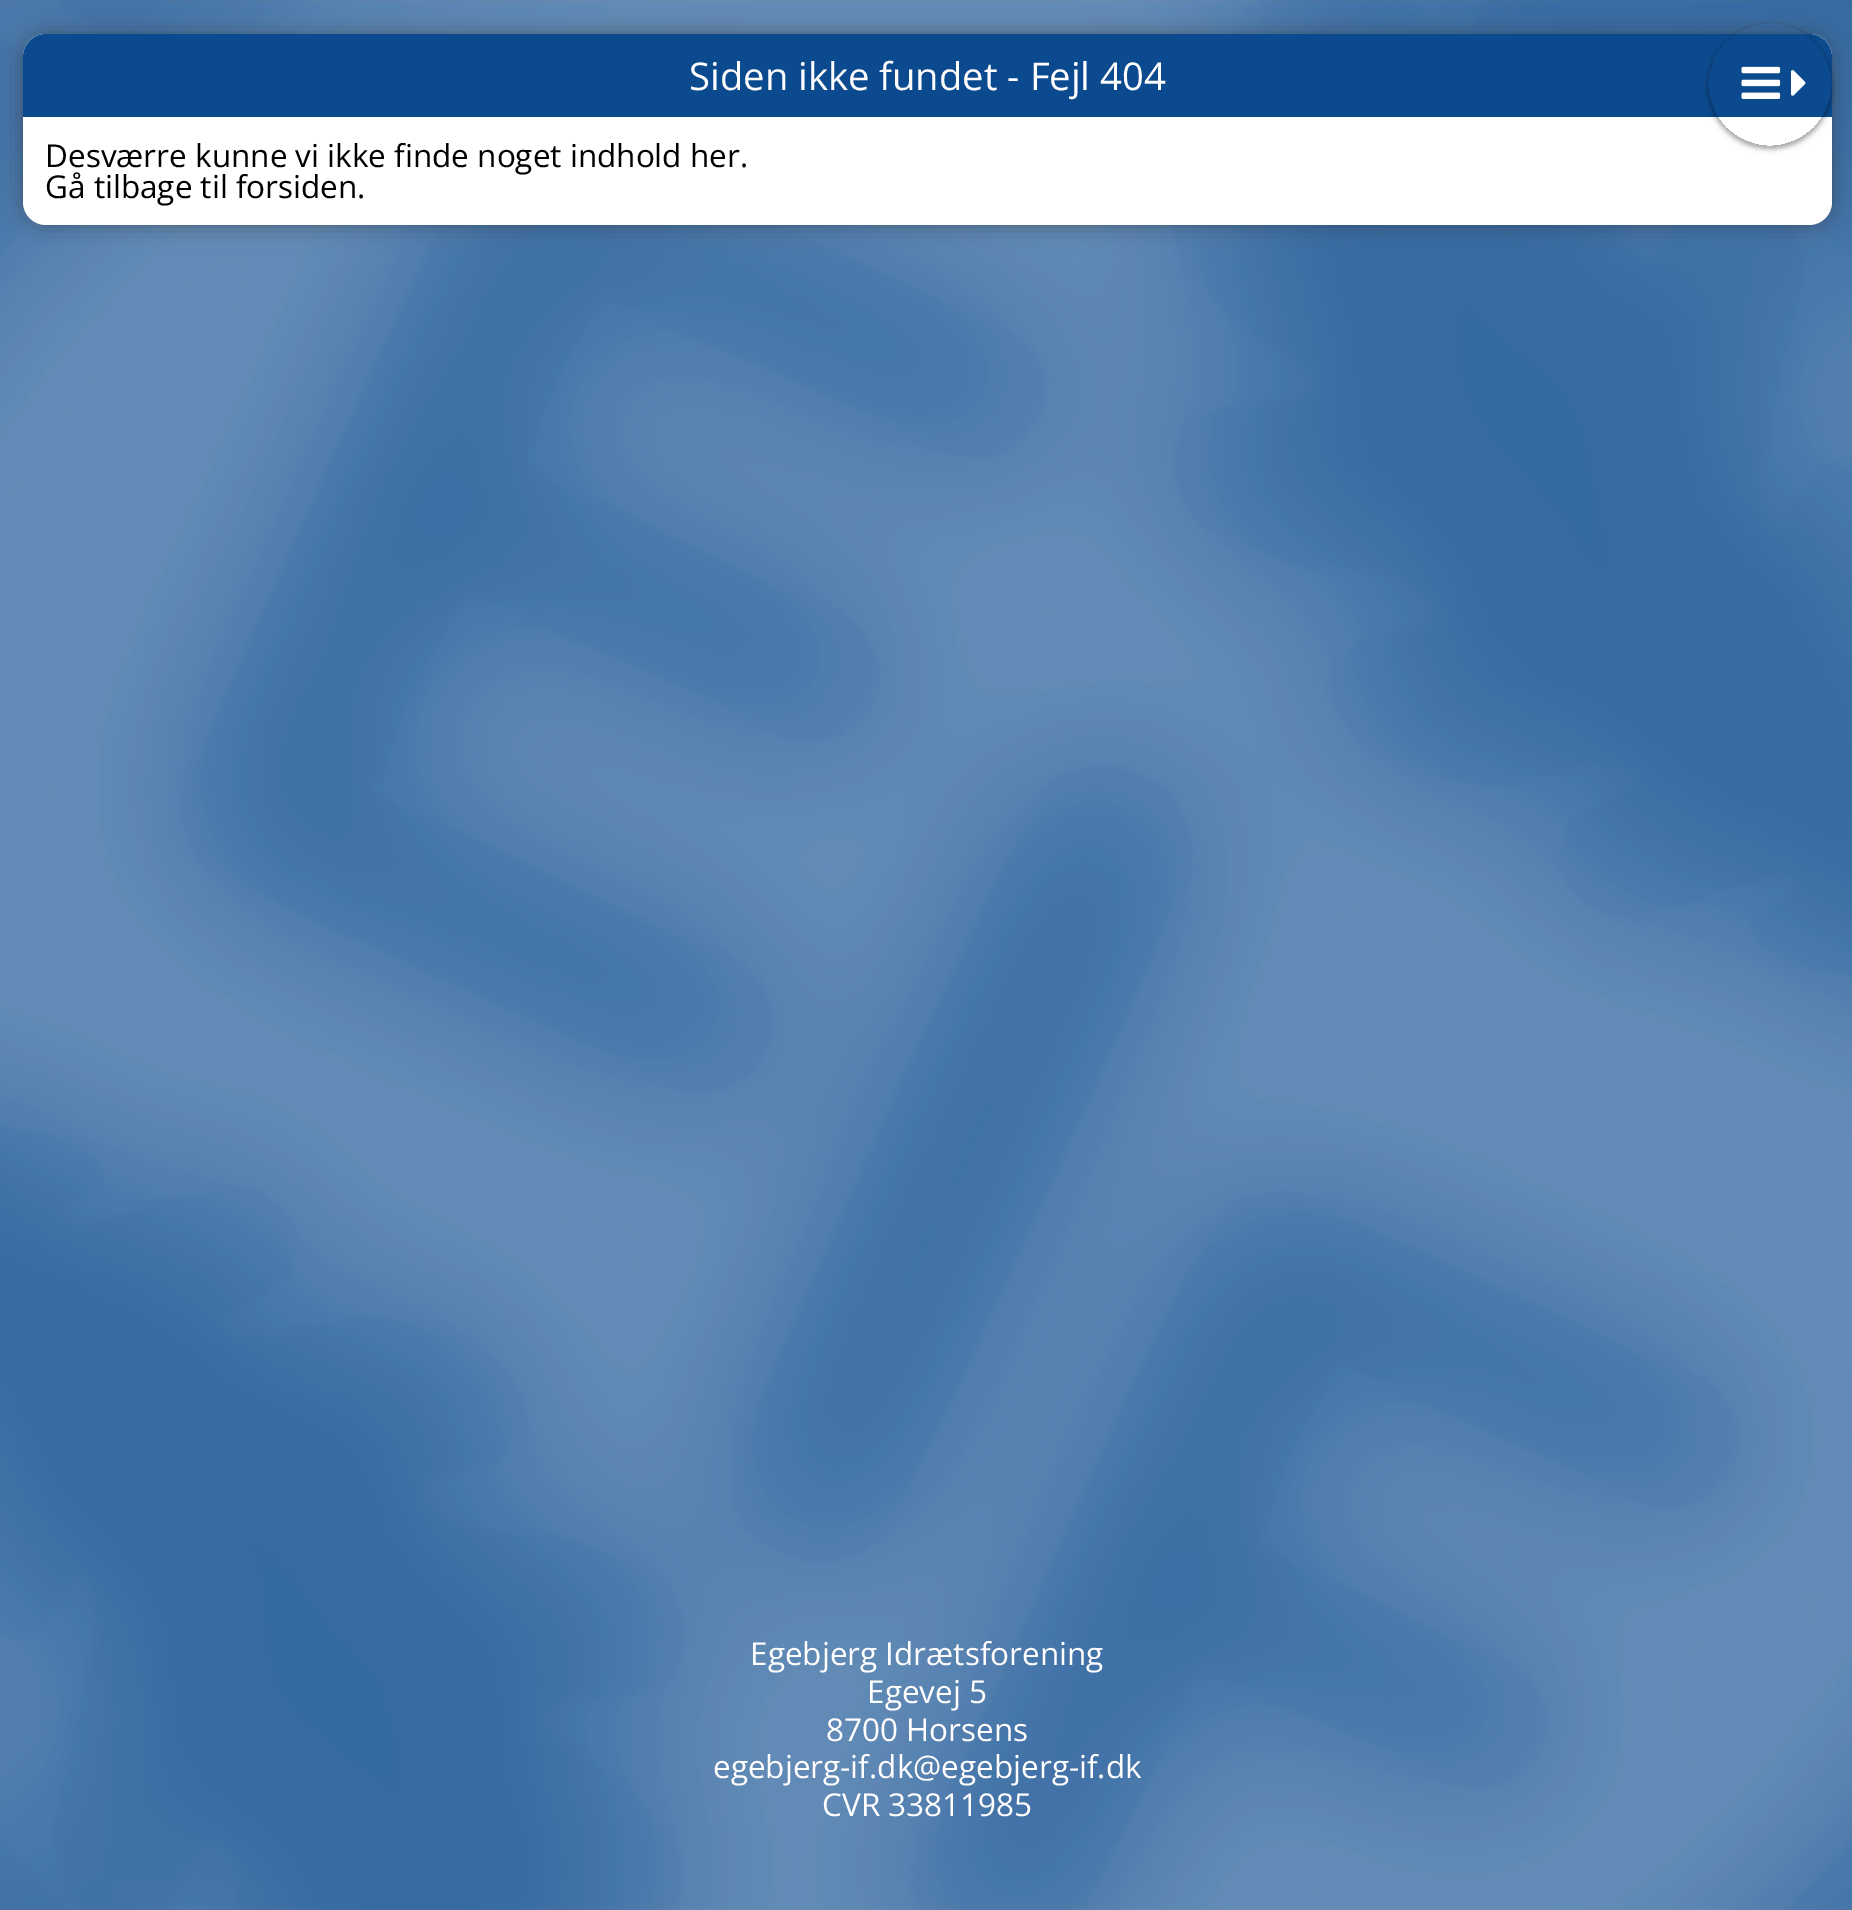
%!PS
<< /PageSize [1852 1910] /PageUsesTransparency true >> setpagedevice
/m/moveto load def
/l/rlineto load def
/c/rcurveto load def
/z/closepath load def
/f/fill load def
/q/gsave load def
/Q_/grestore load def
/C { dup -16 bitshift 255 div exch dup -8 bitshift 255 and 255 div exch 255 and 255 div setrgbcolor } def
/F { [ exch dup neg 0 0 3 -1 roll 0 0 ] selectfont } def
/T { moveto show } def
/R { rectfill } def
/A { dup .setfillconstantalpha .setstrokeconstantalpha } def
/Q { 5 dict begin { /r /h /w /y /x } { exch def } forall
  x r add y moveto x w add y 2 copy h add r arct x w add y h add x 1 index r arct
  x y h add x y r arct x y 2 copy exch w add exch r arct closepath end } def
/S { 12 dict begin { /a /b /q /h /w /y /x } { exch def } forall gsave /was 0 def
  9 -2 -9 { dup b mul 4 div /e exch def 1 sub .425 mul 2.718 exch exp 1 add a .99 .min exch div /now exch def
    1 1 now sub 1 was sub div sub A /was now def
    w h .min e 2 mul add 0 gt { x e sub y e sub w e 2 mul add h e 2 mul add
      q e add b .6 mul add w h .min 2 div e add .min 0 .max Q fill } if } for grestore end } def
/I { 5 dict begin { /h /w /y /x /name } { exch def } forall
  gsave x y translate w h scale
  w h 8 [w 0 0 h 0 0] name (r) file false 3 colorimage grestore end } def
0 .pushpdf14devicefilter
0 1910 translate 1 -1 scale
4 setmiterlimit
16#FFFFFF C
0 0 1852 1910 R
(1.rgb) 0 0 1852 1910 I
16#303030 C
23 34 1809 191 23 11 .5 S
16#FFFFFF C
23 34 1809 191 23 Q f
16#0B4A8E C
46 34 m 1763 0 l 12.5 0 23 10.5 23 23 c 0 60 l -1809 0 l 0 -60 l 0 -12.5 10.5 -23 23 -23 c z f
/OpenSans-Regular 38.25 F
16#FFFDFD C
(Siden ikke fundet - Fejl 404) 689 90 T
/OpenSans-Regular 31.5 F
16#000000 C
(Desværre kunne vi ikke finde noget indhold her.) 45 167 T
(Gå tilbage til forsiden) 45 198 T
(.) 357 198 T
q
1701 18 m 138 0 l 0 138 l -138 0 l z 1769.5 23 m 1 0 l 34 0 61.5 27.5 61.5 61.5 c 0 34 -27.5 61.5 -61.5 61.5 c -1 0 l -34 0 -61.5 -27.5 -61.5 -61.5 c 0 -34 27.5 -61.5 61.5 -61.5 c z eoclip newpath
1708 25 124 124 62 2 .24 S
Q_
q
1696 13 m 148 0 l 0 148 l -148 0 l z 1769.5 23 m 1 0 l 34 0 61.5 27.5 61.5 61.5 c 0 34 -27.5 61.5 -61.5 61.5 c -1 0 l -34 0 -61.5 -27.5 -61.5 -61.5 c 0 -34 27.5 -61.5 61.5 -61.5 c z eoclip newpath
1708 25 124 124 62 3.5 .12 S
Q_
(2.rgb) 1741 66 40 33 I
(3.rgb) 1791 70 15 26 I
16#FFFDFD C
(Egebjerg Idrætsforening) 750 1665 T
(Egevej 5) 867 1703 T
(8700 Horsens) 826 1741 T
(egebjerg-if.dk@egebjerg-if.dk) 713 1778 T
(CVR 33811985) 822 1816 T
.poppdf14devicefilter showpage
